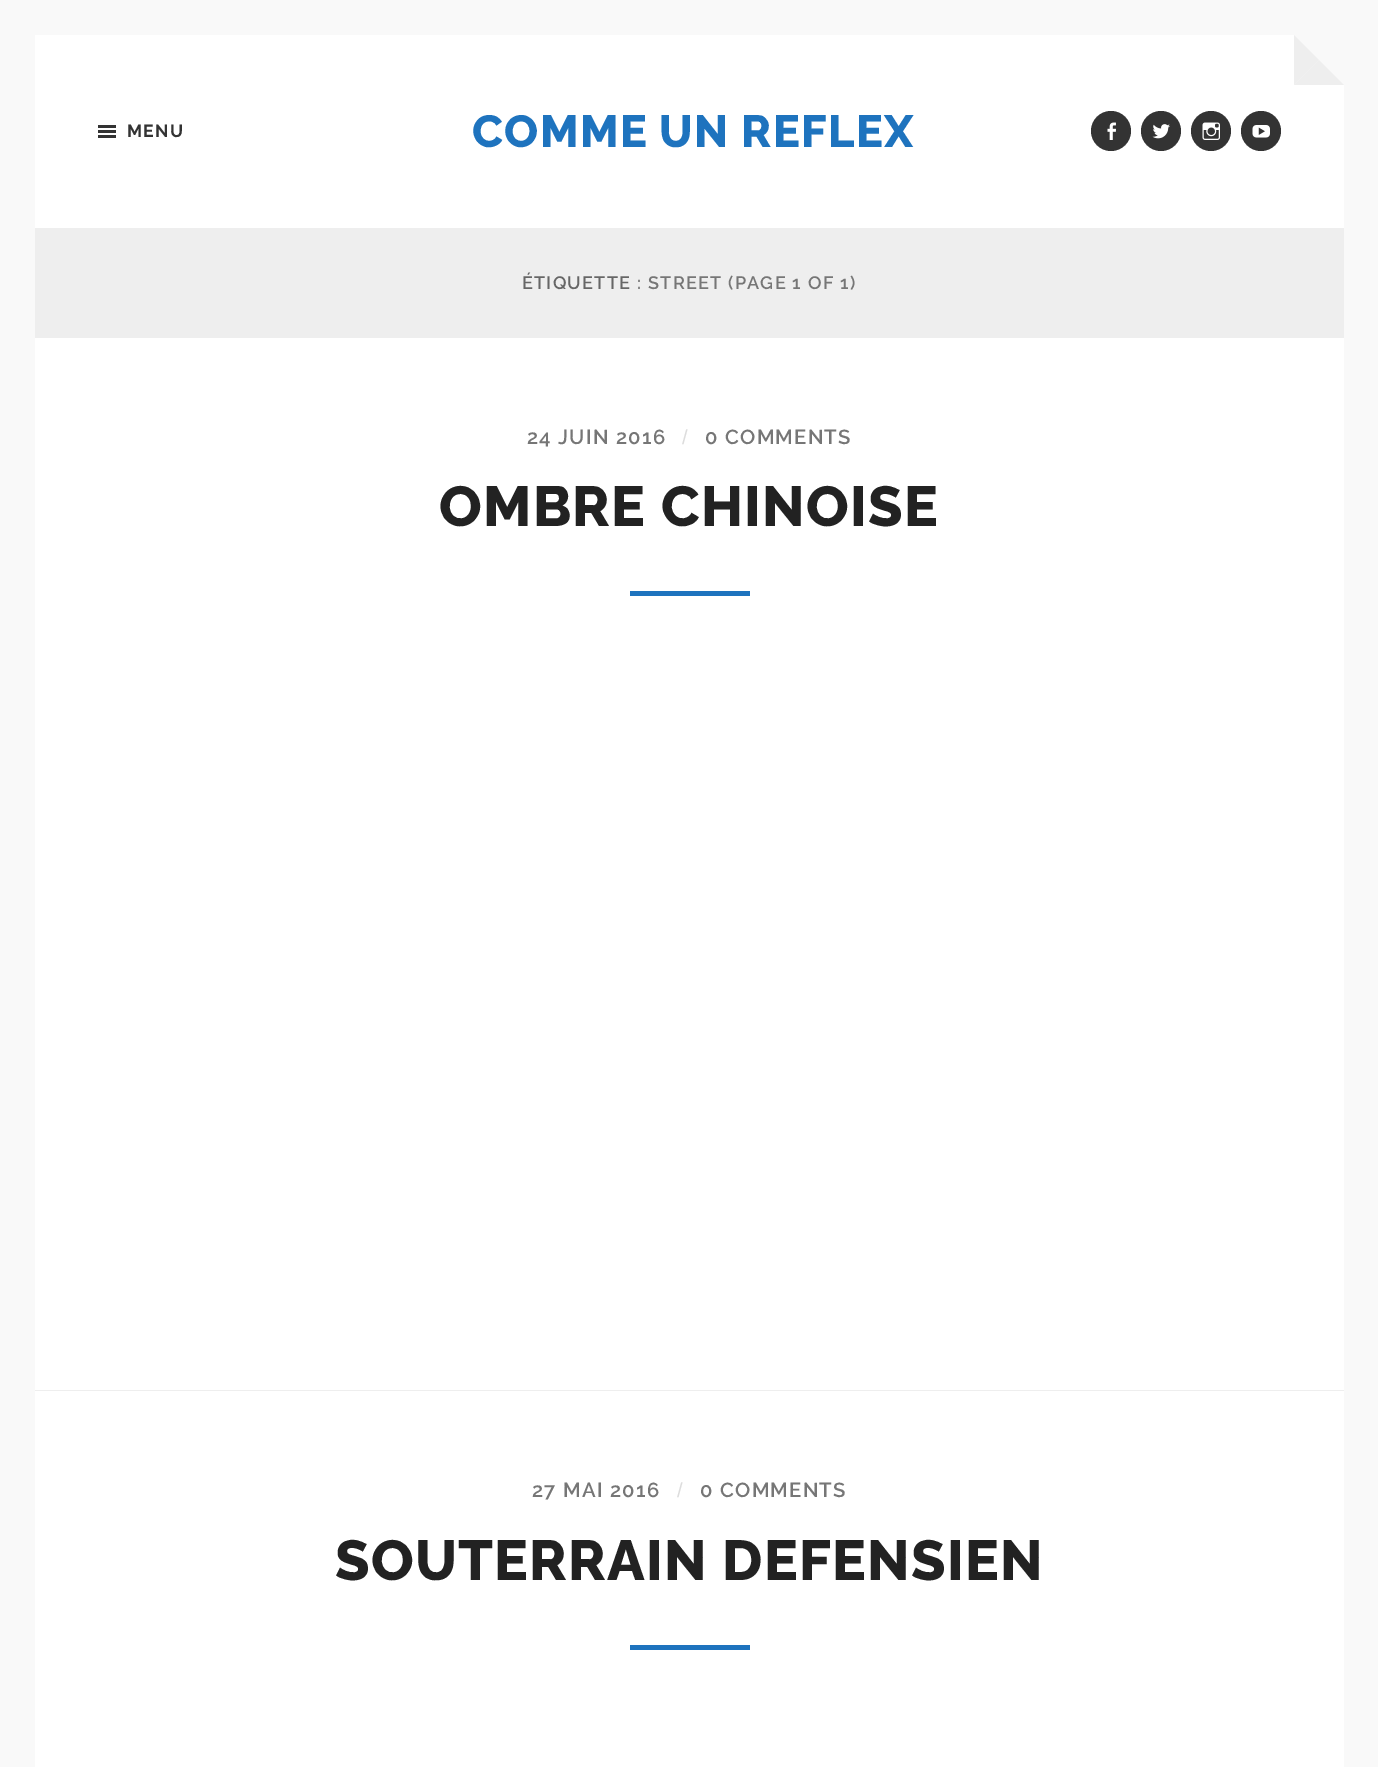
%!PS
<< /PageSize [1378 1767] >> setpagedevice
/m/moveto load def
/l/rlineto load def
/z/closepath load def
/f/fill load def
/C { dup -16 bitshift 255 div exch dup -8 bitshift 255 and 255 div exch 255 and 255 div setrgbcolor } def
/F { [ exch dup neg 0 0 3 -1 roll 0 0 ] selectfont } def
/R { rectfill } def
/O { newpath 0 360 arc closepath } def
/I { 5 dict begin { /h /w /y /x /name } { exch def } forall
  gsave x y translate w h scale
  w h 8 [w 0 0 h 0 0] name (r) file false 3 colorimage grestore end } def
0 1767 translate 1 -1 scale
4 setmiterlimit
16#F9F9F9 C
0 0 1378 1767 R
16#FFFFFF C
35 35 1309 1732 R
16#F9F9F9 C
1294 35 m 50 0 l -25 25 l z f
1344 35 m 0 50 l -25 -25 l z f
16#EEEEEE C
1344 85 m -50 0 l 25 -25 l z f
1294 85 m 0 -50 l 25 25 l z f
16#333333 C
98 125 18 3 R
98 130 18 3 R
98 135 18 3 R
/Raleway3-Thin 17.5 F
127 137 m 1.25 0 (MENU) ashow
/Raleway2-Thin 45 F
16#1E73BE C
472 147 m 1.25 0 (COMME UN REFLEX) ashow
16#333333 C
1111 131 20 O f
(1.rgb) 1107 122 9 18 I
1161 131 20 O f
(2.rgb) 1152 124 18 15 I
1211 131 20 O f
(3.rgb) 1202 122 18 18 I
1261 131 20 O f
(4.rgb) 1252 125 18 13 I
16#EEEEEE C
35 228 1309 110 R
/Raleway-Thin 18 F
16#666666 C
522 289 m 1.25 0 (ÉTIQUETTE :) ashow
16#767676 C
648 289 m 1.25 0 (STREET \(PAGE 1 OF 1\)) ashow
/Raleway-Thin 20.25 F
527 444 m 1.25 0 (24 JUIN 2016) ashow
/LiberationSans-Regular 20.25 F
16#DDDDDD C
682 444 m 1.25 0 (/) ashow
/Raleway-Thin 20.25 F
16#767676 C
705 444 m 1.25 0 (0 COMMENTS) ashow
/Raleway2-Thin 56.25 F
16#222222 C
439 526 m 1.25 0 (OMBRE CHINOISE) ashow
16#1E73BE C
630 591 120 5 R
16#EEEEEE C
35 1390 1309 1 R
/Raleway-Thin 20.25 F
16#767676 C
532 1497 m 1.25 0 (27 MAI 2016) ashow
/LiberationSans-Regular 20.25 F
16#DDDDDD C
677 1497 m 1.25 0 (/) ashow
/Raleway-Thin 20.25 F
16#767676 C
700 1497 m 1.25 0 (0 COMMENTS) ashow
/Raleway2-Thin 56.25 F
16#222222 C
335 1580 m 1.25 0 (SOUTERRAIN DEFENSIEN) ashow
16#1E73BE C
630 1645 120 5 R
showpage
